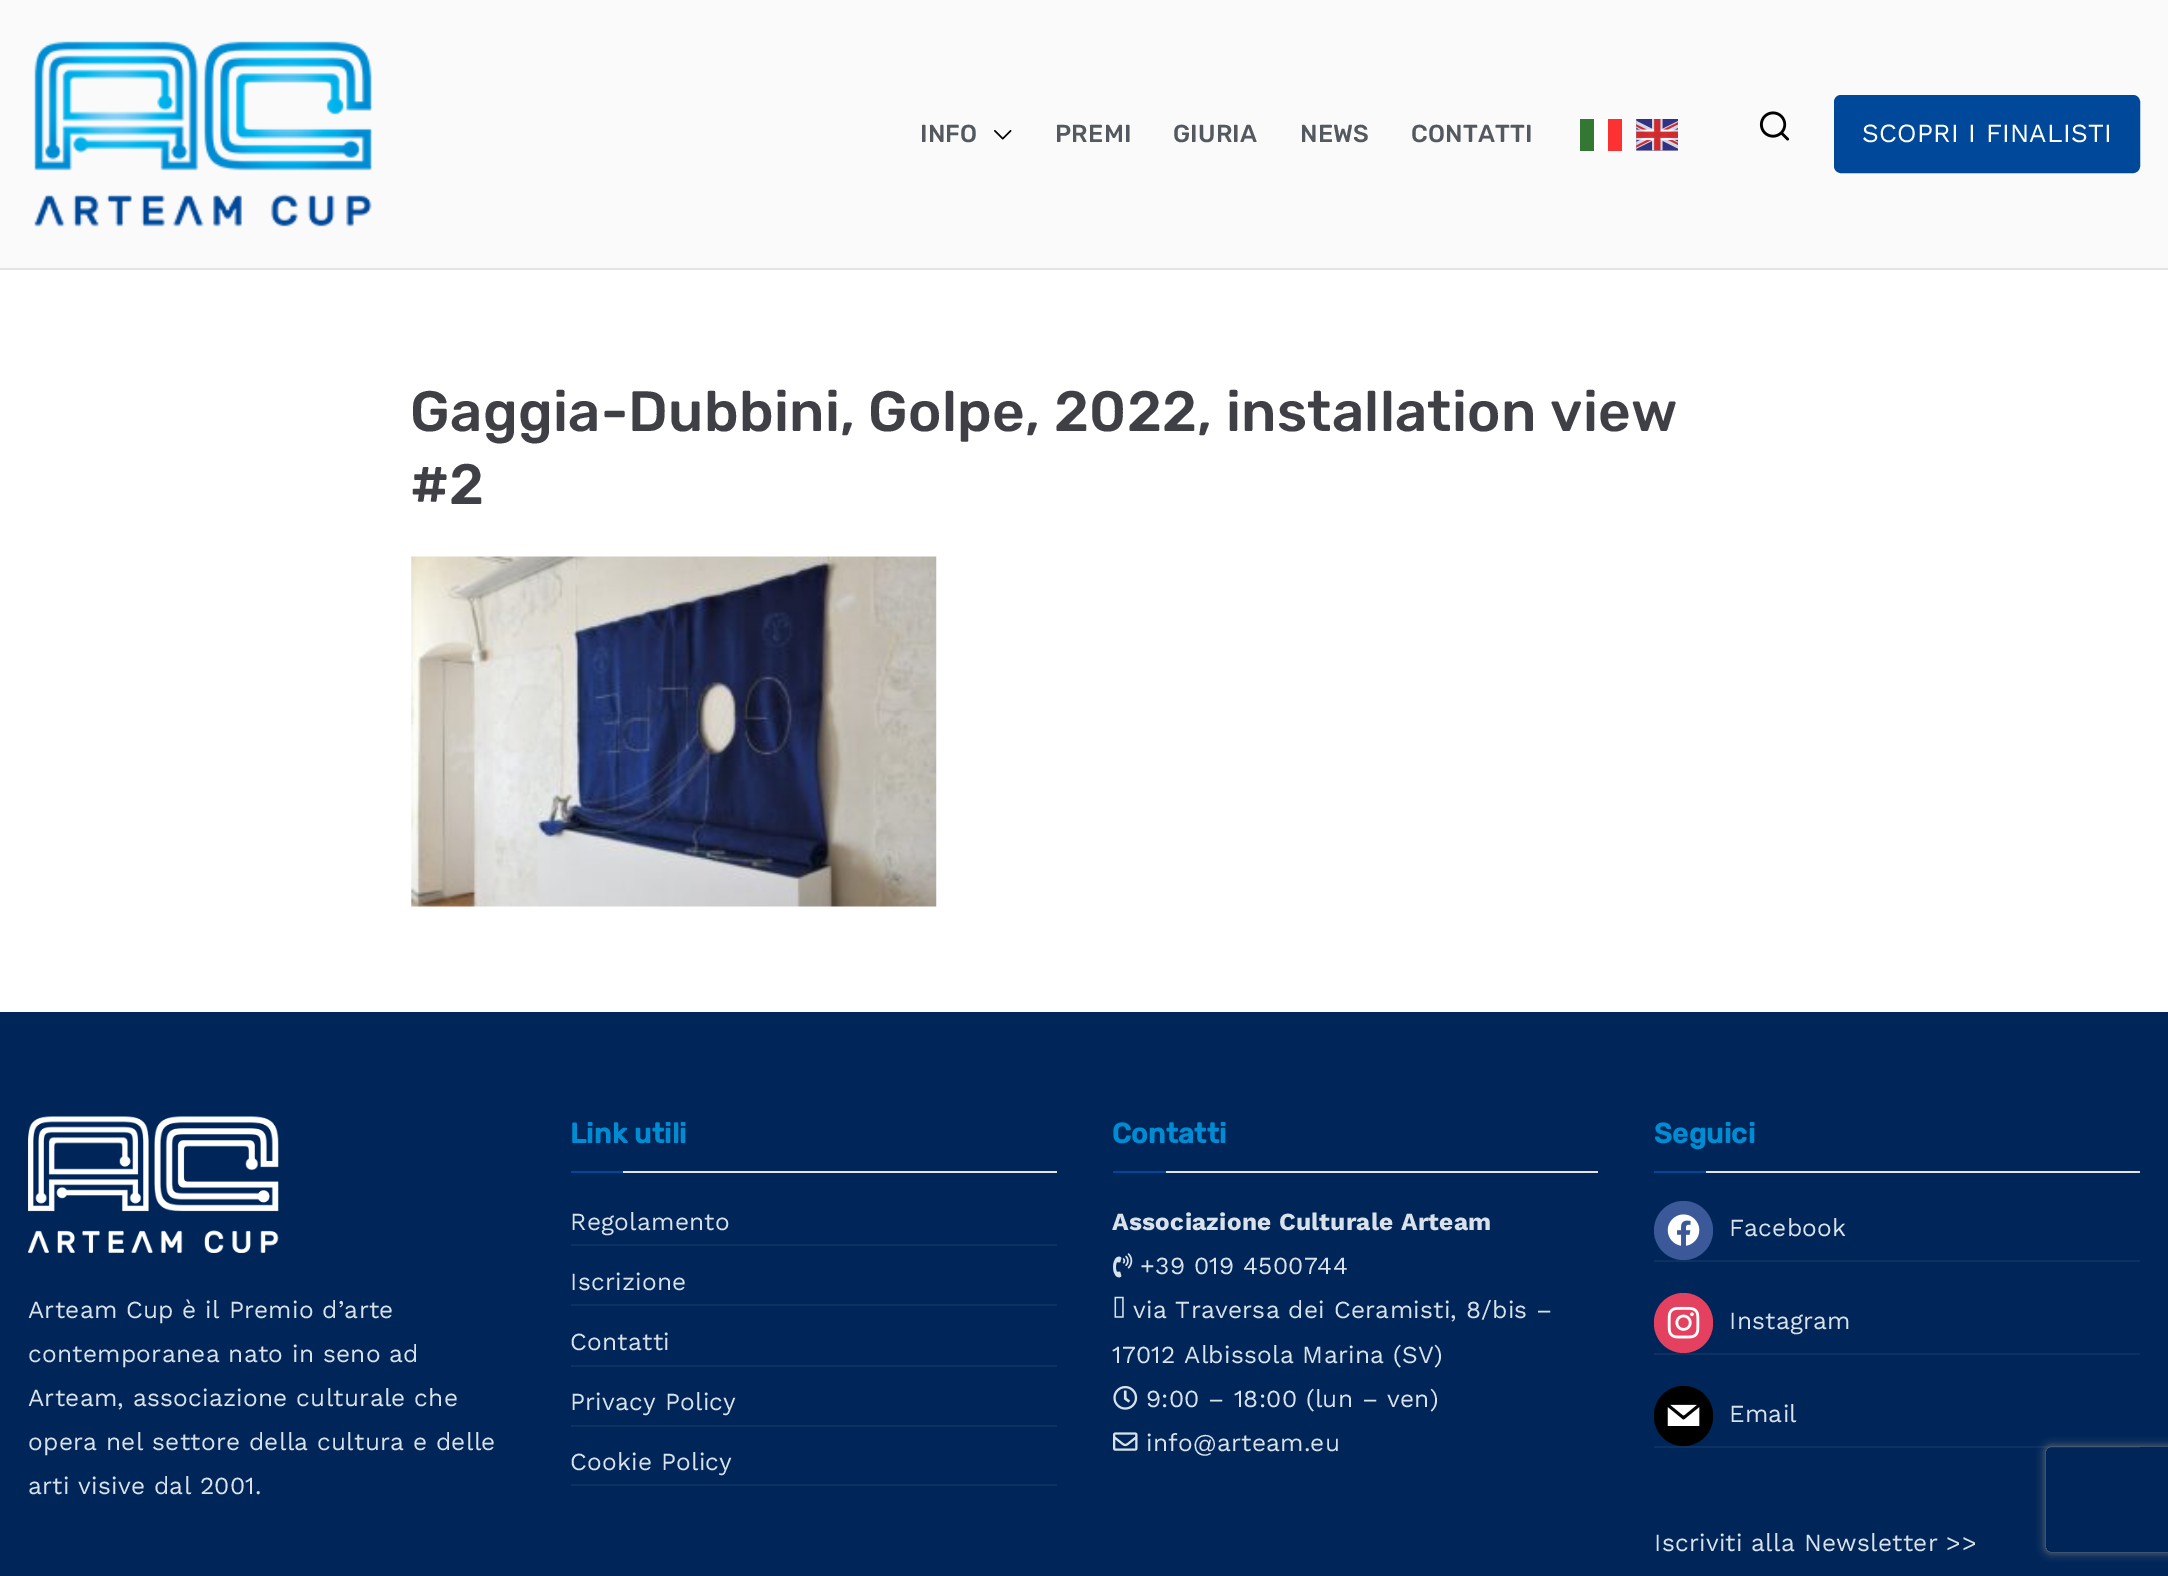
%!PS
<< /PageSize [2168 1576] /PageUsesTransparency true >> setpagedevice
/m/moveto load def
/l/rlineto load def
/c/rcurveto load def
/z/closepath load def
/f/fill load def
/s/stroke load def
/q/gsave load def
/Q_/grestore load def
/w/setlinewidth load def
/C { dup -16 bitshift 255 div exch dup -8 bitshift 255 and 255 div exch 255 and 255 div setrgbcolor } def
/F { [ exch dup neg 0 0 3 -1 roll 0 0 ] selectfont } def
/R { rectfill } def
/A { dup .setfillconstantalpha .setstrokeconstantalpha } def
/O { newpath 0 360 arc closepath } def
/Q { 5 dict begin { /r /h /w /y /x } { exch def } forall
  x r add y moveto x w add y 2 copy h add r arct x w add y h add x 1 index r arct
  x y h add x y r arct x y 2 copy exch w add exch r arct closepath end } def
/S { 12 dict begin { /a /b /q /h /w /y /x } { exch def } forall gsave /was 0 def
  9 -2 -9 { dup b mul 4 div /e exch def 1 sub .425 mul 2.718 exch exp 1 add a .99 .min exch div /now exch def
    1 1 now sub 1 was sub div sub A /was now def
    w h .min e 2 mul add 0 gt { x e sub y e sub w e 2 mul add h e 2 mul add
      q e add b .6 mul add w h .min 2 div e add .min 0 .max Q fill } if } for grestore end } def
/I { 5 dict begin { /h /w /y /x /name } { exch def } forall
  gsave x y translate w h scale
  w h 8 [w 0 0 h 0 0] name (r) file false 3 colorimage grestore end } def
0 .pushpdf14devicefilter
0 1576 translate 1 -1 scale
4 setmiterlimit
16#FAFAFA C
0 0 2168 1576 R
16#E4E4E7 C
0 268 2168 2 R
(1.rgb) 34 41 338 186 I
/Rubik-Light 24.5 F
16#54595F C
920 142 m .25 0 (INFO) ashow
(2.rgb) 994 130 18 10 I
1055 142 m .25 0 (PREMI) ashow
1173 142 m .25 0 (GIURIA) ashow
1300 142 m .25 0 (NEWS) ashow
1411 142 m .25 0 (CONTATTI) ashow
16#327832 C
1580 119 14 32 R
16#FEFEFE C
1594 119 14 31 R
16#FC3232 C
1608 119 14 32 R
(3.rgb) 1636 119 42 32 I
(4.rgb) 1759 111 31 30 I
16#004899 C
1835 96 304 76 6 Q q f Q_
2 w
s
/WorkSans-Regular 26.25 F
16#FEFEFE C
1862 142 m .25 0 (SCOPRI I FINALISTI) ashow
16#FFFFFF C
0 270 2168 742 R
/Rubik-Light 56.7 F
16#3F3F46 C
410 431 m .25 0 (Gaggia-Dubbini, Golpe, 2022, installation view) ashow
410 504 m .25 0 (#2) ashow
(5.rgb) 411 556 526 351 I
16#002659 C
0 1012 2168 564 R
(6.rgb) 28 1116 251 137 I
/WorkSans-Regular 24.5 F
16#D9E2EA C
28 1318 m .25 0 (Arteam Cup è il Premio d’arte) ashow
28 1362 m .25 0 (contemporanea nato in seno ad) ashow
28 1406 m .25 0 (Arteam, associazione culturale che) ashow
28 1450 m .25 0 (opera nel settore della cultura e delle) ashow
28 1494 m .25 0 (arti visive dal 2001.) ashow
16#E4E4E7 C
623 1171 434 2 R
/Rubik-Bold 28 F
16#008CD2 C
570 1143 m .25 0 (Link utili) ashow
16#004899 C
571 1171 52 2 R
16#0D3161 C
571 1244 486 2 R
/WorkSans-Regular 24.5 F
16#D9E2EA C
570 1230 m .25 0 (Regolamento) ashow
16#0D3161 C
571 1304 486 2 R
16#D9E2EA C
570 1290 m .25 0 (Iscrizione) ashow
16#0D3161 C
571 1365 486 2 R
16#D9E2EA C
570 1350 m .25 0 (Contatti) ashow
16#0D3161 C
571 1425 486 2 R
16#D9E2EA C
570 1410 m .25 0 (Privacy Policy) ashow
16#0D3161 C
571 1484 486 2 R
16#D9E2EA C
570 1470 m .25 0 (Cookie Policy) ashow
16#E4E4E7 C
1166 1171 432 2 R
/Rubik-Bold 28 F
16#008CD2 C
1112 1143 m .25 0 (Contatti) ashow
16#004899 C
1113 1171 53 2 R
/WorkSans-Bold 24.5 F
16#D9E2EA C
1112 1230 m .25 0 (Associazione Culturale Arteam) ashow
(7.rgb) 1113 1253 20 25 I
/WorkSans-Regular 24.5 F
1140 1274 m .25 0 (+39 019 4500744) ashow
(8.rgb) 1114 1296 10 22 I
1133 1318 m .25 0 (via Traversa dei Ceramisti, 8/bis –) ashow
1112 1363 m .25 0 (17012 Albissola Marina \(SV\)) ashow
(9.rgb) 1113 1385 25 25 I
1146 1407 m .25 0 (9:00 – 18:00 \(lun – ven\)) ashow
(10.rgb) 1113 1432 25 19 I
1146 1451 m .25 0 (info@arteam.eu) ashow
16#E4E4E7 C
1706 1171 434 2 R
/Rubik-Bold 28 F
16#008CD2 C
1654 1143 m .25 0 (Seguici) ashow
16#004899 C
1654 1171 52 2 R
16#0D3161 C
1654 1260 486 2 R
16#3B5998 C
1683.5 1230.5 29.5 O f
(11.rgb) 1667 1214 33 32 I
/WorkSans-Regular 24.5 F
16#D9E2EA C
1729 1236 m .25 0 (Facebook) ashow
16#0D3161 C
1654 1353 486 2 R
16#E4405F C
1654 1293 59 60 29.5 Q f
(12.rgb) 1667 1306 33 33 I
16#D9E2EA C
1729 1329 m .25 0 (Instagram) ashow
16#0D3161 C
1654 1446 486 2 R
16#000000 C
1654 1386 59 60 29.5 Q f
(13.rgb) 1667 1404 33 22 I
16#D9E2EA C
1729 1422 m .25 0 (Email) ashow
1654 1551 m .25 0 (Iscriviti alla Newsletter >>) ashow
q
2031 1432 m 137 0 l 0 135 l -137 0 l z 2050 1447 m 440 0 l 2 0 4 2 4 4 c 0 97 l 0 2 -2 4 -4 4 c -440 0 l -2 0 -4 -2 -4 -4 c 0 -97 l 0 -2 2 -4 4 -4 c z eoclip newpath
16#808080 C
2046 1447 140 105 4 4.5 1 S
Q_
.poppdf14devicefilter showpage
